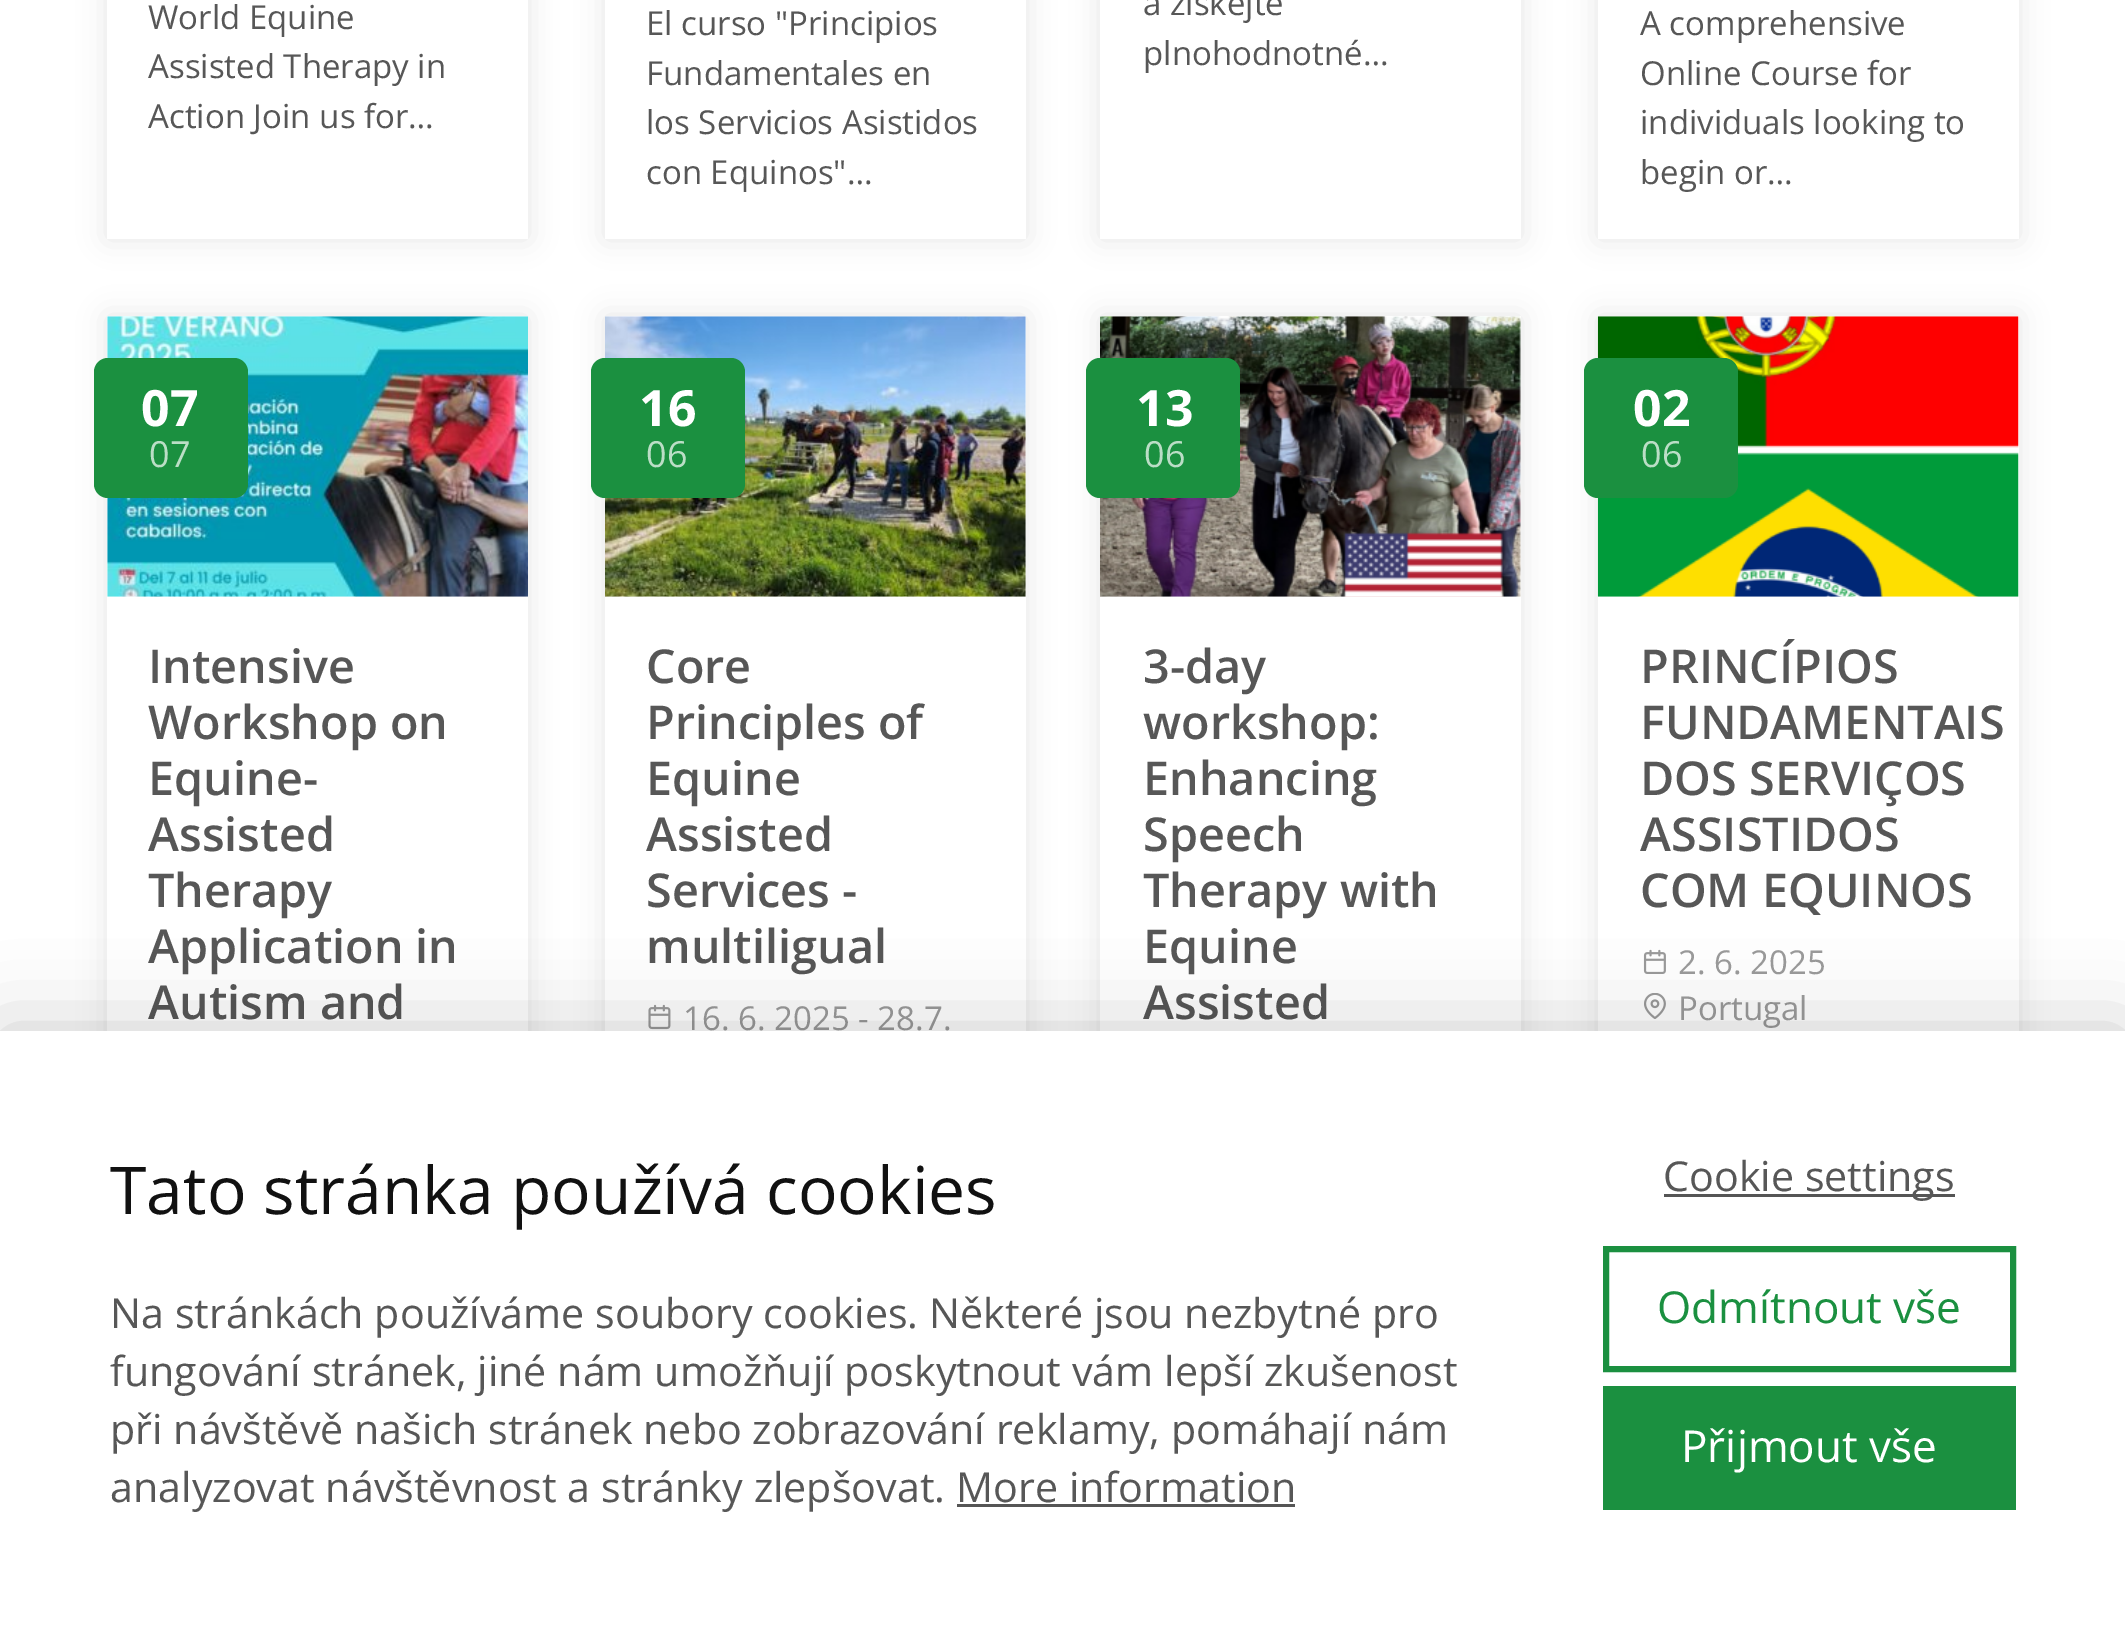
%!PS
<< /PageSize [2125 1625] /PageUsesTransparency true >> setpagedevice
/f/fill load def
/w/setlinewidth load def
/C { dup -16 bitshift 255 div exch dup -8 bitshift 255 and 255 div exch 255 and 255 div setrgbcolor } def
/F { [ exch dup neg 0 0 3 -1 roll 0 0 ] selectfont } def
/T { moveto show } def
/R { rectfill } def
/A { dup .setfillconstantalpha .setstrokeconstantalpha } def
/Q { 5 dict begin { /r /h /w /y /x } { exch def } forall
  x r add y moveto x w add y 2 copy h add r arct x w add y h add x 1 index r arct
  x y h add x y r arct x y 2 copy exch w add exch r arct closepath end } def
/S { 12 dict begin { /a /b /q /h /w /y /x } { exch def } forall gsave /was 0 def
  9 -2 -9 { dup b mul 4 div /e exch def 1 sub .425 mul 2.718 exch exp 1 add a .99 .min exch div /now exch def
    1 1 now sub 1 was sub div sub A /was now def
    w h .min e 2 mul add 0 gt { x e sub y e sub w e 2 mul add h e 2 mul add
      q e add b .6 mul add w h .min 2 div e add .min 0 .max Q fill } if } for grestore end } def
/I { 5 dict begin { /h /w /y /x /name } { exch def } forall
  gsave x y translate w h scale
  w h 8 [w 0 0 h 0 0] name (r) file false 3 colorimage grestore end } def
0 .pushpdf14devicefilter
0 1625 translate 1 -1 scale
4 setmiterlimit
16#FFFFFF C
0 0 2125 1625 R
16#000000 C
107 -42 421 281 0 14 .1 S
16#FFFFFF C
107 0 421 239 R
/OpenSans-Regular 33 F
16#575757 C
(World Equine) 148 29 T
(Assisted Therapy in) 148 78 T
(Action Join us for…) 148 128 T
16#000000 C
605 -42 421 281 0 14 .1 S
16#FFFFFF C
605 0 421 239 R
16#575757 C
(El curso "Principios) 646 35 T
(Fundamentales en) 646 85 T
(los Servicios Asistidos) 646 134 T
(con Equinos"…) 646 184 T
16#000000 C
1100 -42 421 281 0 14 .1 S
16#FFFFFF C
1100 0 421 239 R
16#575757 C
(a získejte) 1143 15 T
(plnohodnotné…) 1143 65 T
16#000000 C
1598 -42 421 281 0 14 .1 S
16#FFFFFF C
1598 0 421 239 R
16#575757 C
(A comprehensive) 1640 35 T
(Online Course for) 1640 85 T
(individuals looking to) 1640 134 T
(begin or…) 1640 184 T
16#000000 C
107 316 421 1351 0 14 .1 S
16#FFFFFF C
107 316 421 715 R
(1.rgb) 107 316 421 281 I
16#1B9040 C
94 358 154 140 14 Q f
/OpenSans-Bold 50 F
16#FFFFFF C
(07) 141 426 T
/OpenSans-Regular 36 F
16#BBDEC6 C
(07) 149 467 T
/OpenSans-SemiBold 46.75 F
16#575757 C
(Intensive) 148 683 T
(Workshop on) 148 739 T
(Equine-) 148 795 T
(Assisted) 148 851 T
(Therapy) 148 907 T
(Application in) 148 963 T
(Autism and) 148 1019 T
16#000000 C
605 316 421 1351 0 14 .1 S
16#FFFFFF C
605 316 421 715 R
(2.rgb) 605 316 421 281 I
16#1B9040 C
591 358 154 140 14 Q f
/OpenSans-Bold 50 F
16#FFFFFF C
(16) 639 426 T
/OpenSans-Regular 36 F
16#BBDEC6 C
(06) 646 467 T
/OpenSans-SemiBold 46.75 F
16#575757 C
(Core) 646 683 T
(Principles of) 646 739 T
(Equine) 646 795 T
(Assisted) 646 851 T
(Services -) 646 907 T
(multiligual) 646 963 T
(3.rgb) 648 1004 23 26 I
/OpenSans-Regular 33 F
16#9A9A9A C
(16. 6. 2025 - 28.7.) 683 1030 T
16#000000 C
1100 316 421 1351 0 14 .1 S
16#FFFFFF C
1100 316 421 715 R
(4.rgb) 1100 316 421 281 I
16#1B9040 C
1086 358 154 140 14 Q f
/OpenSans-Bold 50 F
16#FFFFFF C
(13) 1136 426 T
/OpenSans-Regular 36 F
16#BBDEC6 C
(06) 1144 467 T
/OpenSans-SemiBold 46.75 F
16#575757 C
(3-day) 1143 683 T
(workshop:) 1143 739 T
(Enhancing) 1143 795 T
(Speech) 1143 851 T
(Therapy with) 1143 907 T
(Equine) 1143 963 T
(Assisted) 1143 1019 T
16#000000 C
1598 316 421 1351 0 14 .1 S
16#FFFFFF C
1598 316 421 715 R
(5.rgb) 1597 316 422 281 I
16#1B9040 C
1584 358 154 140 14 Q f
/OpenSans-Bold 50 F
16#FFFFFF C
(02) 1633 426 T
/OpenSans-Regular 36 F
16#BBDEC6 C
(06) 1641 467 T
/OpenSans-SemiBold 46.75 F
16#575757 C
(PRINCÍPIOS) 1640 683 T
(FUNDAMENTAIS) 1640 739 T
(DOS SERVIÇOS) 1640 795 T
(ASSISTIDOS) 1640 851 T
(COM EQUINOS) 1640 907 T
(6.rgb) 1643 949 23 25 I
/OpenSans-Regular 33 F
16#9A9A9A C
(2. 6. 2025) 1678 974 T
(7.rgb) 1644 993 22 26 I
(Portugal) 1678 1020 T
16#000000 C
0 1031 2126 594 0 41 .2 S
16#FFFFFF C
0 1031 2125 594 R
/OpenSans-Regular 66 F
16#111111 C
(Tato stránka používá cookies) 110 1214 T
/OpenSans-Regular 41.25 F
16#575757 C
(Na stránkách používáme soubory cookies. Některé jsou nezbytné pro) 110 1328 T
(fungování stránek, jiné nám umožňují poskytnout vám lepší zkušenost) 110 1386 T
(při návštěvě našich stránek nebo zobrazování reklamy, pomáhají nám) 110 1444 T
(analyzovat návštěvnost a stránky zlepšovat. More information) 110 1502 T
16#555555 C
957 1504 338 3 R
1664 1194 291 3 R
16#575757 C
(Cookie settings) 1663 1191 T
16#1B9040 C
6 w
1606 1249 407 120 rectstroke
/OpenSans-Regular 44 F
(Odmítnout vše) 1657 1323 T
1603 1386 413 124 R
16#FFFFFF C
(Přijmout vše) 1681 1462 T
.poppdf14devicefilter showpage
